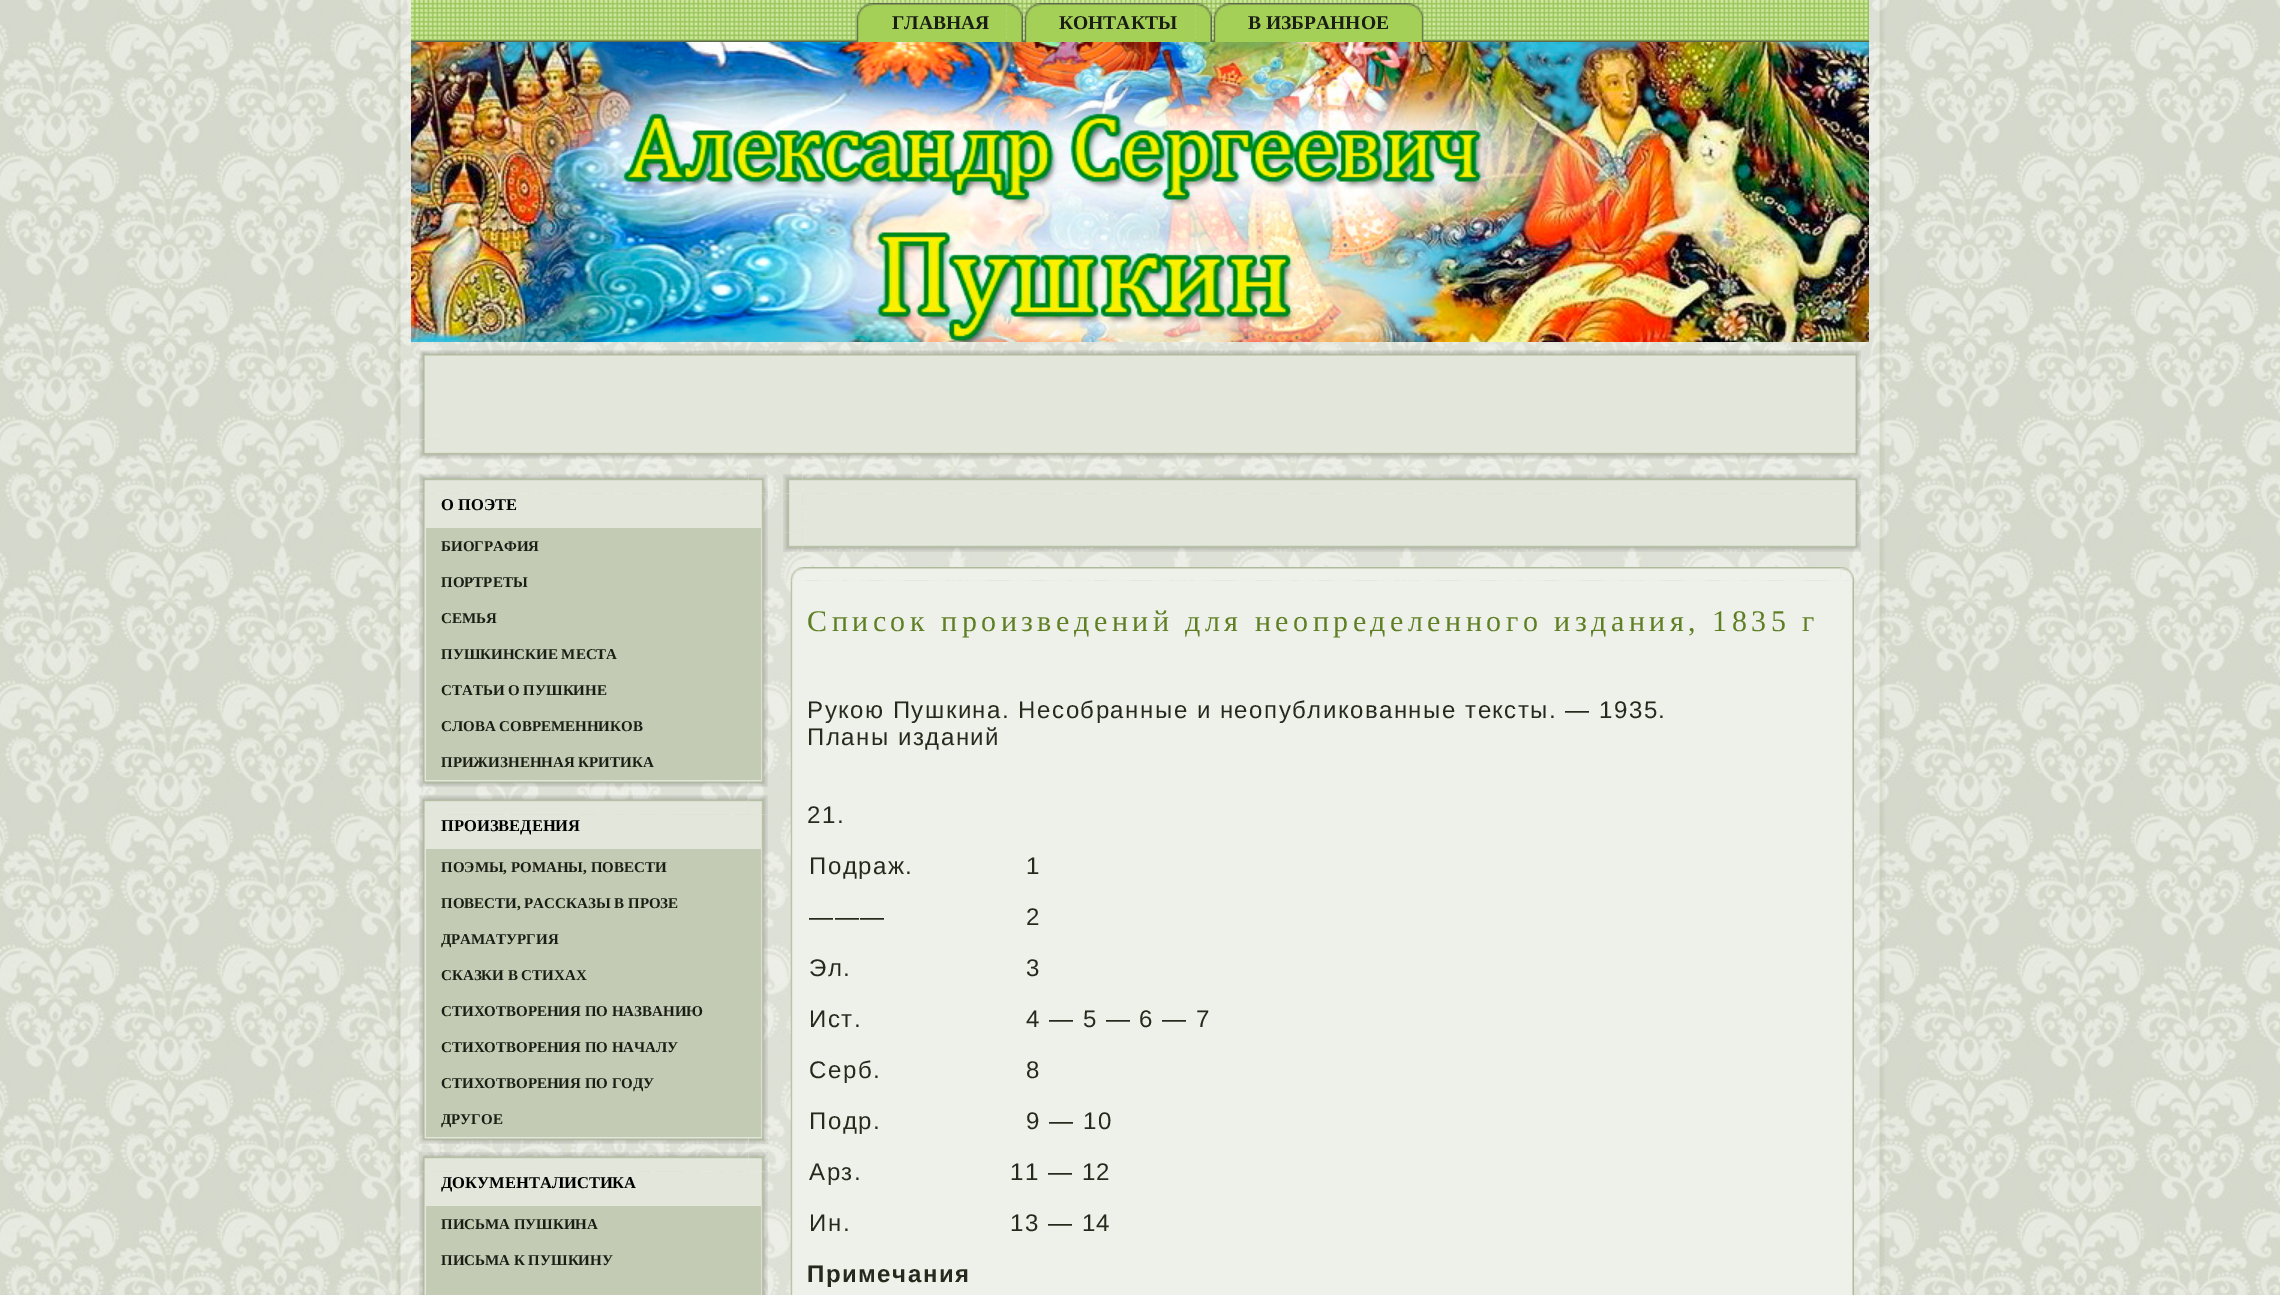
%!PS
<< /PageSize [2280 1295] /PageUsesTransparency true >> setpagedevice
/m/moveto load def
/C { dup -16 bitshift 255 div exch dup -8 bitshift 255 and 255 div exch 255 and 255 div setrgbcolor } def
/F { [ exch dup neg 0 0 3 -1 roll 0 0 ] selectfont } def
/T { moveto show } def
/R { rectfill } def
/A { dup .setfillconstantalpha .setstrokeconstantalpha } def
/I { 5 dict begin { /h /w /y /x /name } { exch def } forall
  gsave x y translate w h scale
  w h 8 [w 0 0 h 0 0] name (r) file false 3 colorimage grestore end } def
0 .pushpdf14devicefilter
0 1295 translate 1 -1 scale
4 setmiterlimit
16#FFFFFF C
0 0 2280 1295 R
(1.rgb) 0 0 2280 1295 I
(2.rgb) 395 0 16 33 I
(53.rgb) 395 33 49 1262 I
(54.rgb) 1836 33 49 1262 I
(3.rgb) 411 0 1458 42 I
(4.rgb) 856 3 151 39 I
(5.rgb) 1006 3 17 39 I
/LiberationSerif-Bold 19.5 F
16#1B1E15 C
(ГЛАВНАЯ) 892 29 T
(6.rgb) 1024 3 172 39 I
(5.rgb) 1195 3 17 39 I
(КОНТАКТЫ) 1059 29 T
(7.rgb) 1213 3 194 39 I
(8.rgb) 1407 3 17 39 I
(В ИЗБРАННОЕ) 1248 29 T
(9.rgb) 411 42 1458 300 I
(10.rgb) 419 350 19 19 I
0.2 A
16#FFFFFF C
444 342 1392 953 R
1 A
(11.rgb) 438 350 1404 19 I
(12.rgb) 1842 350 19 19 I
(15.rgb) 419 439 19 20 I
(13.rgb) 419 369 19 71 I
16#E2E6DB C
438 369 1404 71 R
(17.rgb) 1842 439 19 20 I
(14.rgb) 1842 369 19 71 I
(16.rgb) 438 440 1404 19 I
(18.rgb) 419 474 19 20 I
(20.rgb) 748 474 20 20 I
(19.rgb) 438 474 311 20 I
(21.rgb) 419 493 19 275 I
(22.rgb) 748 493 20 275 I
438 494 311 34 R
/LiberationSerif-Bold 16.5 F
16#000000 C
(О ПОЭТЕ) 441 510 T
(23.rgb) 419 768 19 19 I
(25.rgb) 748 768 20 19 I
16#C3CBB4 C
426 528 335 252 R
/LiberationSerif-Bold 15 F
16#1B1E15 C
(БИОГРАФИЯ) 441 551 T
(ПОРТРЕТЫ) 441 587 T
(СЕМЬЯ) 441 623 T
(ПУШКИНСКИЕ МЕСТА) 441 659 T
(СТАТЬИ О ПУШКИНЕ) 441 695 T
(СЛОВА СОВРЕМЕННИКОВ) 441 731 T
(ПРИЖИЗНЕННАЯ КРИТИКА) 441 767 T
(24.rgb) 438 780 311 7 I
(26.rgb) 419 795 19 20 I
(28.rgb) 748 795 20 20 I
(27.rgb) 438 795 311 20 I
(29.rgb) 419 814 19 311 I
(30.rgb) 748 814 20 311 I
16#E2E6DB C
438 815 311 34 R
/LiberationSerif-Bold 16.5 F
16#000000 C
(ПРОИЗВЕДЕНИЯ) 441 831 T
(31.rgb) 419 1125 19 19 I
(33.rgb) 748 1125 20 19 I
16#C3CBB4 C
426 849 335 288 R
/LiberationSerif-Bold 15 F
16#1B1E15 C
(ПОЭМЫ, РОМАНЫ, ПОВЕСТИ) 441 872 T
(ПОВЕСТИ, РАССКАЗЫ В ПРОЗЕ) 441 908 T
(ДРАМАТУРГИЯ) 441 944 T
(СКАЗКИ В СТИХАХ) 441 980 T
(СТИХОТВОРЕНИЯ ПО НАЗВАНИЮ) 441 1016 T
(СТИХОТВОРЕНИЯ ПО НАЧАЛУ) 441 1052 T
(СТИХОТВОРЕНИЯ ПО ГОДУ) 441 1088 T
(ДРУГОЕ) 441 1124 T
(32.rgb) 438 1137 311 7 I
(34.rgb) 419 1152 19 20 I
(36.rgb) 748 1152 20 20 I
(35.rgb) 438 1152 311 20 I
(37.rgb) 419 1171 19 124 I
(38.rgb) 748 1171 20 124 I
16#E2E6DB C
438 1172 311 34 R
/LiberationSerif-Bold 16.5 F
16#000000 C
(ДОКУМЕНТАЛИСТИКА) 441 1188 T
16#C3CBB4 C
426 1206 335 89 R
/LiberationSerif-Bold 15 F
16#1B1E15 C
(ПИСЬМА ПУШКИНА) 441 1229 T
(ПИСЬМА К ПУШКИНУ) 441 1265 T
(39.rgb) 783 474 20 20 I
(40.rgb) 802 474 1040 20 I
(41.rgb) 1842 474 19 20 I
(44.rgb) 783 532 20 20 I
(45.rgb) 802 532 1040 20 I
(42.rgb) 783 493 20 40 I
16#E2E6DB C
803 494 1039 39 R
(46.rgb) 1842 532 19 20 I
(43.rgb) 1842 493 19 40 I
(47.rgb) 790 567 14 14 I
(49.rgb) 1840 567 14 14 I
(48.rgb) 804 567 1037 14 I
(50.rgb) 790 580 14 715 I
(51.rgb) 1840 580 14 715 I
16#EEF0EA C
804 581 1037 714 R
/LiberationSerif-Regular 30 F
16#5E7F24 C
807 631 m 4.5 0 (Список произведений для неопределенного издания, 1835 г) ashow
/LiberationSans-Regular 24 F
16#262A1D C
807 718 m 1.5 0 (Рукою Пушкина. Несобранные и неопубликованные тексты. — 1935.) ashow
807 745 m 1.5 0 (Планы изданий) ashow
807 823 m 1.5 0 (21.) ashow
809 874 m 1.5 0 (Подраж.) ashow
1026 874 m 1.5 0 (1) ashow
809 925 m 1.5 0 (———) ashow
1026 925 m 1.5 0 (2) ashow
809 976 m 1.5 0 (Эл.) ashow
1026 976 m 1.5 0 (3) ashow
809 1027 m 1.5 0 (Ист.) ashow
1026 1027 m 1.5 0 (4 — 5 — 6 — 7) ashow
809 1078 m 1.5 0 (Серб.) ashow
1026 1078 m 1.5 0 (8) ashow
809 1129 m 1.5 0 (Подр.) ashow
1026 1129 m 1.5 0 (9 — 10) ashow
809 1180 m 1.5 0 (Арз.) ashow
1010 1180 m 1.5 0 (11 — 12) ashow
809 1231 m 1.5 0 (Ин.) ashow
1010 1231 m 1.5 0 (13 — 14) ashow
/LiberationSans-Bold 24 F
807 1282 m 1.5 0 (Примечания) ashow
(52.rgb) 1869 0 16 33 I
.poppdf14devicefilter showpage
